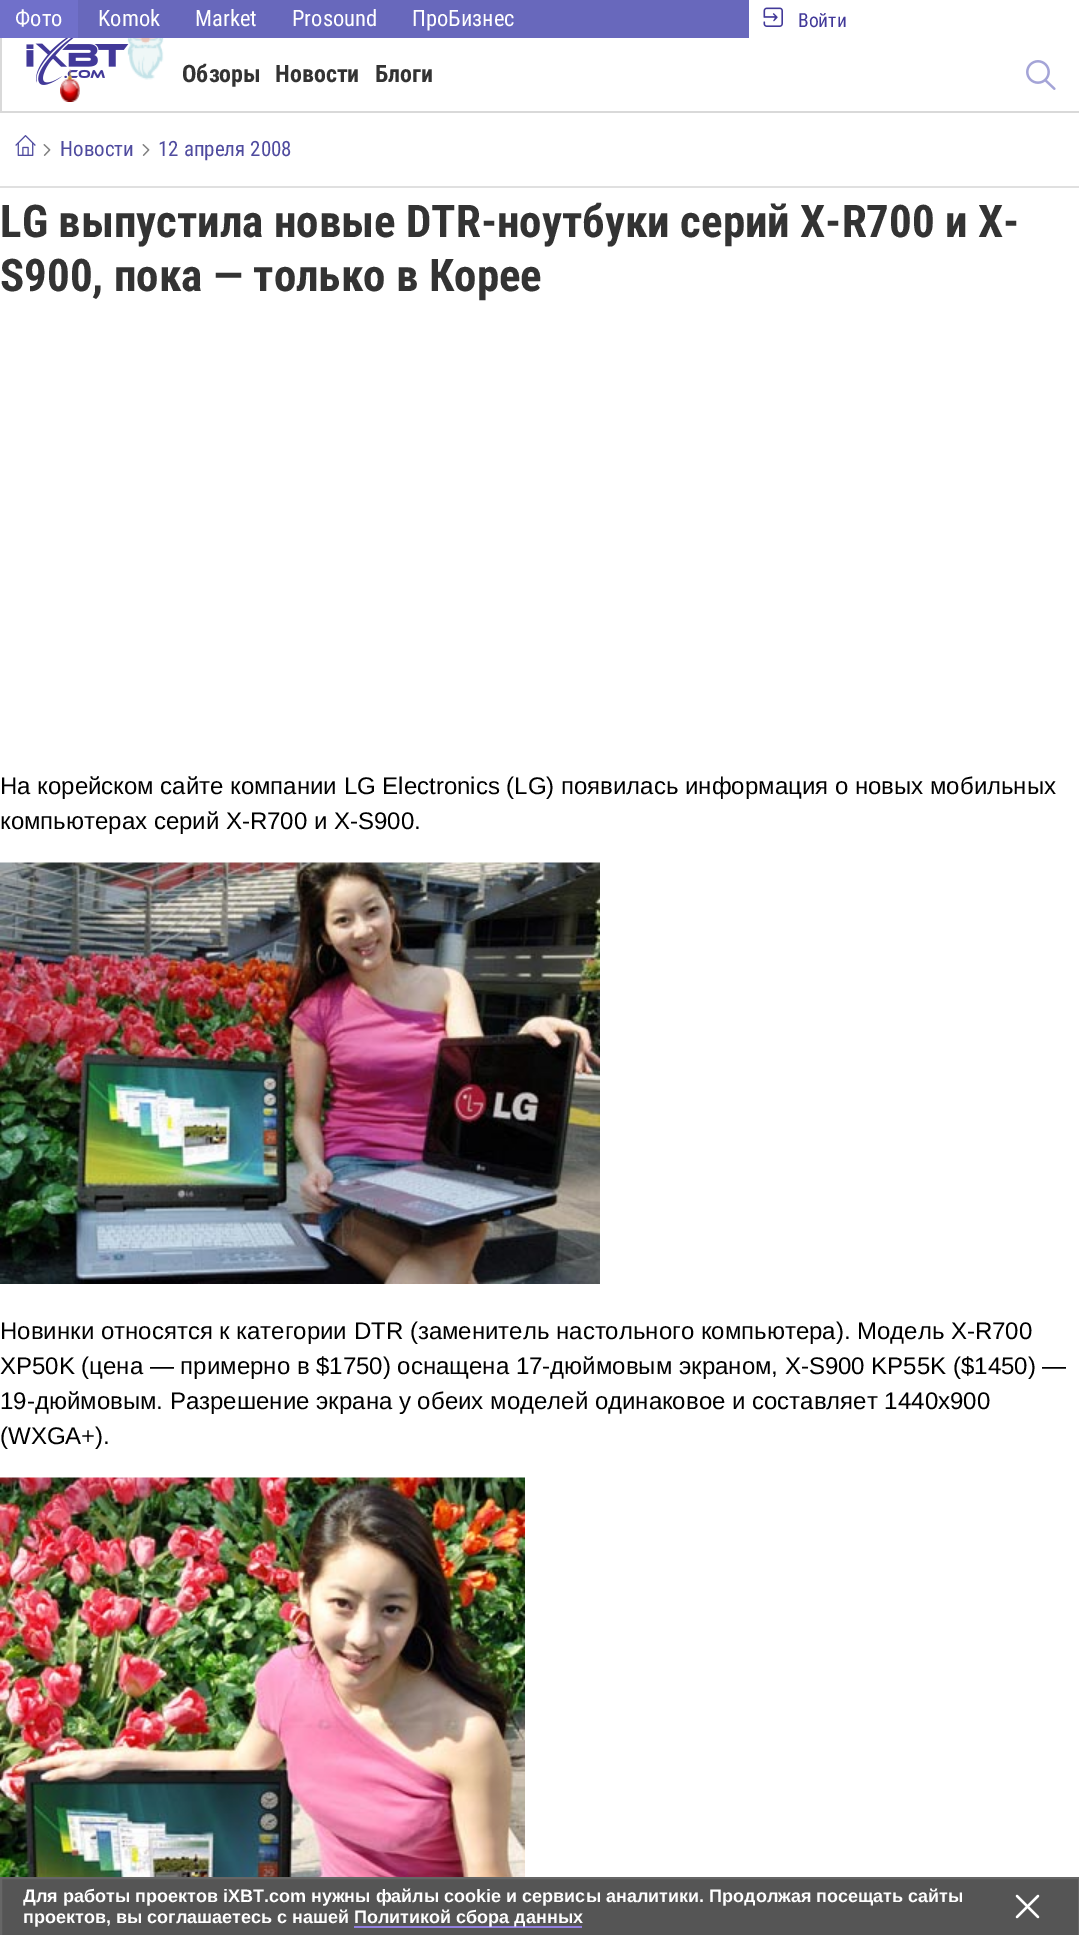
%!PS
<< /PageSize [1079 1935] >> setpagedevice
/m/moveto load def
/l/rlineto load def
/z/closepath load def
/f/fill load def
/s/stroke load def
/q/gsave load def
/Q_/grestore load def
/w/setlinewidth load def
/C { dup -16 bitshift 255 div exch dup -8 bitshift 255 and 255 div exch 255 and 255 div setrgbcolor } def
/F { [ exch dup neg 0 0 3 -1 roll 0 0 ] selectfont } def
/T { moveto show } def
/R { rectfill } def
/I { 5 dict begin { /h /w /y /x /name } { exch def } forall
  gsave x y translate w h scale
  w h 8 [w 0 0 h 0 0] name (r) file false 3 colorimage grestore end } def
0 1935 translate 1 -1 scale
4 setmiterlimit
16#FFFFFF C
0 0 1079 1935 R
16#6868BC C
78 0 671 38 R
16#7070CA C
0 0 78 38 R
/RobotoCondensed-Regular 22.5 F
16#FFFFFF C
(Фото) 15 26 T
(Komok) 98 26 T
(Market) 195 26 T
(Prosound) 292 26 T
(ПроБизнес) 412 26 T
(1.rgb) 763 7 20 20 I
/RobotoCondensed-Regular 19.5 F
16#423999 C
(Войти) 798 27 T
16#D9D9D9 C
0 111 1079 2 R
0 38 2 75 R
(2.rgb) 26 38 103 47 I
(3.rgb) 60 38 104 64 I
/RobotoCondensed-Bold 24 F
16#333333 C
(Обзоры) 182 82 T
(Новости) 275 82 T
(Блоги) 375 82 T
(4.rgb) 1026 60 30 30 I
16#E0E0E0 C
0 186 1079 2 R
(5.rgb) 15 135 21 21 I
(6.rgb) 43 144 8 12 I
/RobotoCondensed-Regular 21 F
16#4F4B9F C
(Новости) 60 156 T
(6.rgb) 142 144 8 12 I
(12 апреля 2008) 158 156 T
/RobotoCondensed-Bold 45 F
16#333333 C
(LG выпустила новые DTR-ноутбуки серий X-R700 и X-) 0 237 T
(S900, пока — только в Корее) 0 291 T
/LiberationSans-Regular 24 F
16#000000 C
(На корейском сайте компании LG Electronics \(LG\) появилась информация о новых мобильных) 0 794 T
(компьютерах серий X-R700 и X-S900.) 0 829 T
(7.rgb) 0 862 600 422 I
(Новинки относятся к категории DTR \(заменитель настольного компьютера\). Модель X-R700) 0 1339 T
(XP50K \(цена — примерно в $1750\) оснащена 17-дюймовым экраном, X-S900 KP55K \($1450\) —) 0 1374 T
(19-дюймовым. Разрешение экрана у обеих моделей одинаковое и составляет 1440x900) 0 1409 T
(\(WXGA+\).) 0 1444 T
(8.rgb) 0 1477 525 400 I
16#555555 C
1 1878 m 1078 0 l 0 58 l -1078 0 l z q f Q_
16#666666 C
2 w
s
/LiberationSans-Bold 18 F
16#FFFFFF C
(Для работы проектов iXBT.com нужны файлы cookie и сервисы аналитики. Продолжая посещать сайты) 23 1902 T
(проектов, вы соглашаетесь с нашей) 23 1923 T
16#9380E1 C
354 1926 228 2 R
16#FFFFFF C
(Политикой сбора данных) 354 1923 T
2.2 w
1 setlinecap
1 setlinejoin
1017 1896 m 21 21 l 1038 1896 m -21 21 l s
showpage
